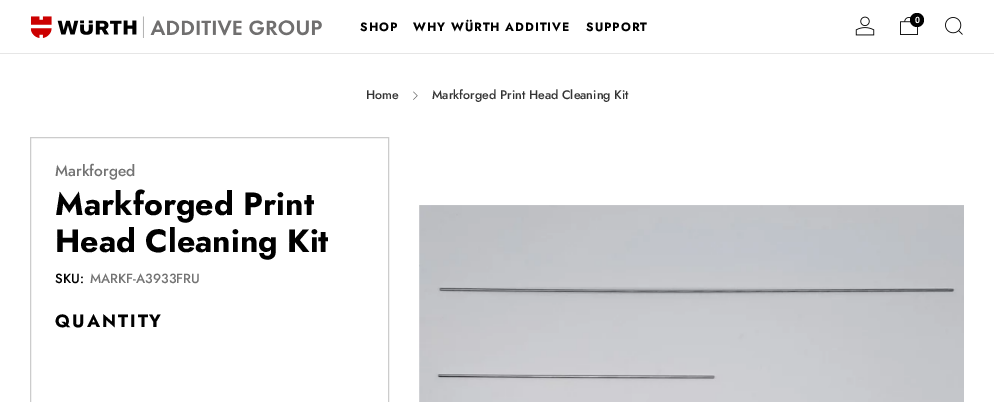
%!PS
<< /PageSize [994 402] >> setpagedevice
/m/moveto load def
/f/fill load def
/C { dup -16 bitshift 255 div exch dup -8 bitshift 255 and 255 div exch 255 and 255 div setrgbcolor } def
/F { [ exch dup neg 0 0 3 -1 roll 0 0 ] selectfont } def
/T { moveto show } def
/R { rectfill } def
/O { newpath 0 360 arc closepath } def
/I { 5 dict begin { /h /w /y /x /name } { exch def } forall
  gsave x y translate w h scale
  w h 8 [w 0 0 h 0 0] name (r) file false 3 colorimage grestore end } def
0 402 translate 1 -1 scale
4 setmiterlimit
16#FFFFFF C
0 0 994 402 R
16#E6E6E6 C
0 53 994 1 R
(1.rgb) 30 16 292 22 I
/Jost-Bold 12 F
16#000000 C
360 31 m 1 0 (SHOP) ashow
413 31 m 1 0 (WHY WÜRTH ADDITIVE) ashow
586 31 m 1 0 (SUPPORT) ashow
(2.rgb) 855 16 20 20 I
(3.rgb) 900 17 18 18 I
917 20 7 O f
/LiberationSans-Bold 9 F
16#FFFFFF C
(0) 915 23 T
(4.rgb) 945 17 18 18 I
/Jost-Medium 12.4 F
16#333333 C
(Home) 366 99 T
(5.rgb) 413 91 5 9 I
(Markforged Print Head Cleaning Kit) 432 99 T
16#CCCCCC C
30.5 137.5 358 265 rectstroke
/Jost-Medium 15.5 F
16#737373 C
(Markforged) 55 176 T
/Jost-Bold 32.1 F
16#000000 C
(Markforged Print) 55 215 T
(Head Cleaning Kit) 55 252 T
/Jost-Medium 13.25 F
(SKU:) 55 283 T
16#737373 C
(MARKF-A3933FRU) 90 283 T
/Jost-Bold 17.75 F
16#000000 C
55 327 m 2 0 (QUANTITY) ashow
(6.rgb) 419 205 545 197 I
showpage
